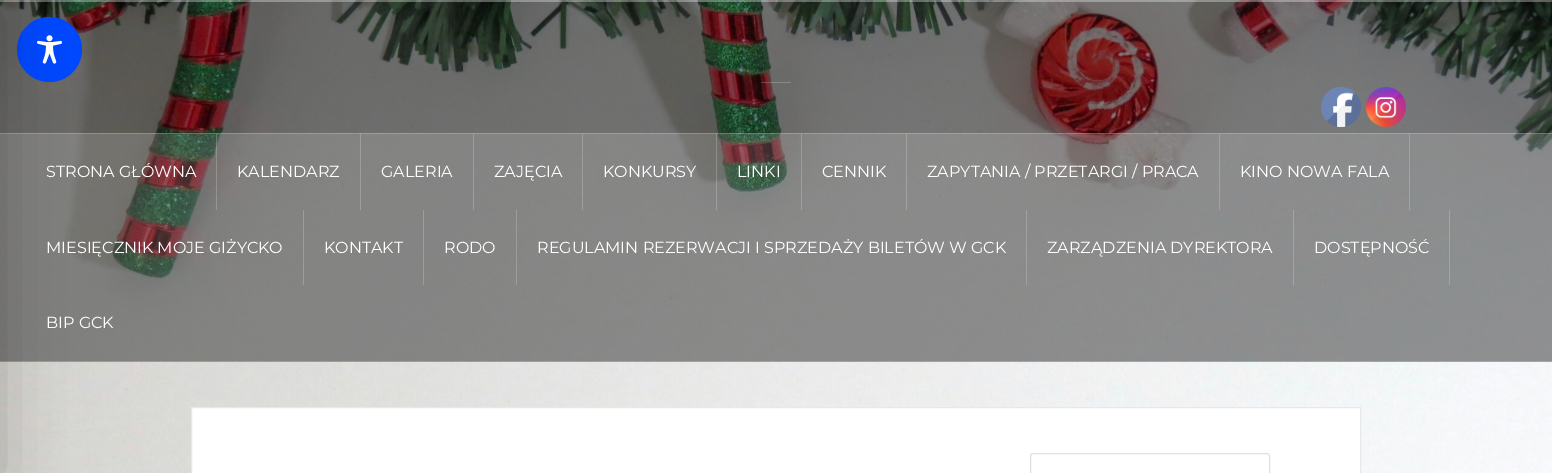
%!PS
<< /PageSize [1552 473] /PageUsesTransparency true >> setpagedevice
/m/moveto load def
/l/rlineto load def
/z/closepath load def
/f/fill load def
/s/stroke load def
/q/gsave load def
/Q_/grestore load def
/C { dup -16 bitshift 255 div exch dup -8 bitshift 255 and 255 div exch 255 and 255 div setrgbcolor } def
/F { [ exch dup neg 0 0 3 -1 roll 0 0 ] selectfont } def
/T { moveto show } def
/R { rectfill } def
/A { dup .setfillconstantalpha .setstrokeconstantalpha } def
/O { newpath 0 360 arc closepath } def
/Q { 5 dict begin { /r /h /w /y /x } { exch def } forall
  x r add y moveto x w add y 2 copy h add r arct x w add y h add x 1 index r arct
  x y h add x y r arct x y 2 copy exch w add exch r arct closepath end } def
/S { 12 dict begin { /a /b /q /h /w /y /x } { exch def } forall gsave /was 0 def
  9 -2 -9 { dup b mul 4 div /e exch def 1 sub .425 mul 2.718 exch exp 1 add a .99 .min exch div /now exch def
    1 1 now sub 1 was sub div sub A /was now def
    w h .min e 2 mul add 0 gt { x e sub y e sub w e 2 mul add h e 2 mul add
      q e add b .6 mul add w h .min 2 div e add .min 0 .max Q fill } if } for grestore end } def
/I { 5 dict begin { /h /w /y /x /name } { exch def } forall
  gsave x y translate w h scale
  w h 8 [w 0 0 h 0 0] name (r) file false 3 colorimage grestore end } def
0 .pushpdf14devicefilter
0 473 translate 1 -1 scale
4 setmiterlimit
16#FFFFFF C
0 0 1552 473 R
(1.rgb) 0 0 1552 473 I
0.5 A
16#000000 C
0 0 1552 362 R
1 A
16#0048FE C
49.5 49.5 32.5 O f
(2.rgb) 37 35 25 29 I
0.15 A
16#FFFFFF C
0 0 1552 2 R
0.2 A
0 0 1552 1 R
0 1 1552 1 R
0.15 A
0 133 1552 229 R
0.2 A
0 133 1552 1 R
0 361 1552 1 R
1 A
16#000000 C
-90 10 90 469 0 30 .2 S
(3.rgb) 1321 87 40 40 I
(4.rgb) 1366 87 40 40 I
0.2 A
16#FFFFFF C
761 82 30 1 R
216 134 1 76 R
/Montserrat-Regular 16 F
1 A
(STRONA GŁÓWNA) 46 177 T
0.2 A
360 134 1 76 R
1 A
(KALENDARZ) 237 177 T
0.2 A
473 134 1 76 R
1 A
(GALERIA) 381 177 T
0.2 A
582 134 1 76 R
1 A
(ZAJĘCIA) 494 177 T
0.2 A
716 134 1 76 R
1 A
(KONKURSY) 603 177 T
0.2 A
801 134 1 76 R
1 A
(LINKI) 737 177 T
0.2 A
906 134 1 76 R
1 A
(CENNIK) 822 177 T
0.2 A
1219 134 1 76 R
1 A
(ZAPYTANIA / PRZETARGI / PRACA) 927 177 T
0.2 A
1409 134 1 76 R
1 A
(KINO NOWA FALA) 1240 177 T
0.2 A
303 210 1 75 R
1 A
(MIESIĘCZNIK MOJE GIŻYCKO) 46 253 T
0.2 A
423 210 1 75 R
1 A
(KONTAKT) 324 253 T
0.2 A
516 210 1 75 R
1 A
(RODO) 444 253 T
0.2 A
1026 210 1 75 R
1 A
(REGULAMIN REZERWACJI I SPRZEDAŻY BILETÓW W GCK) 537 253 T
0.2 A
1293 210 1 75 R
1 A
(ZARZĄDZENIA DYREKTORA) 1047 253 T
0.2 A
1449 210 1 75 R
1 A
(DOSTĘPNOŚĆ) 1314 253 T
(BIP GCK) 46 328 T
191.5 407.5 m 1169 0 l 0 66 l -1169 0 l z q f Q_
16#E8E8E8 C
s
16#E0E0E0 C
1030.5 453.5 239 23 2.5 Q s
.poppdf14devicefilter showpage
